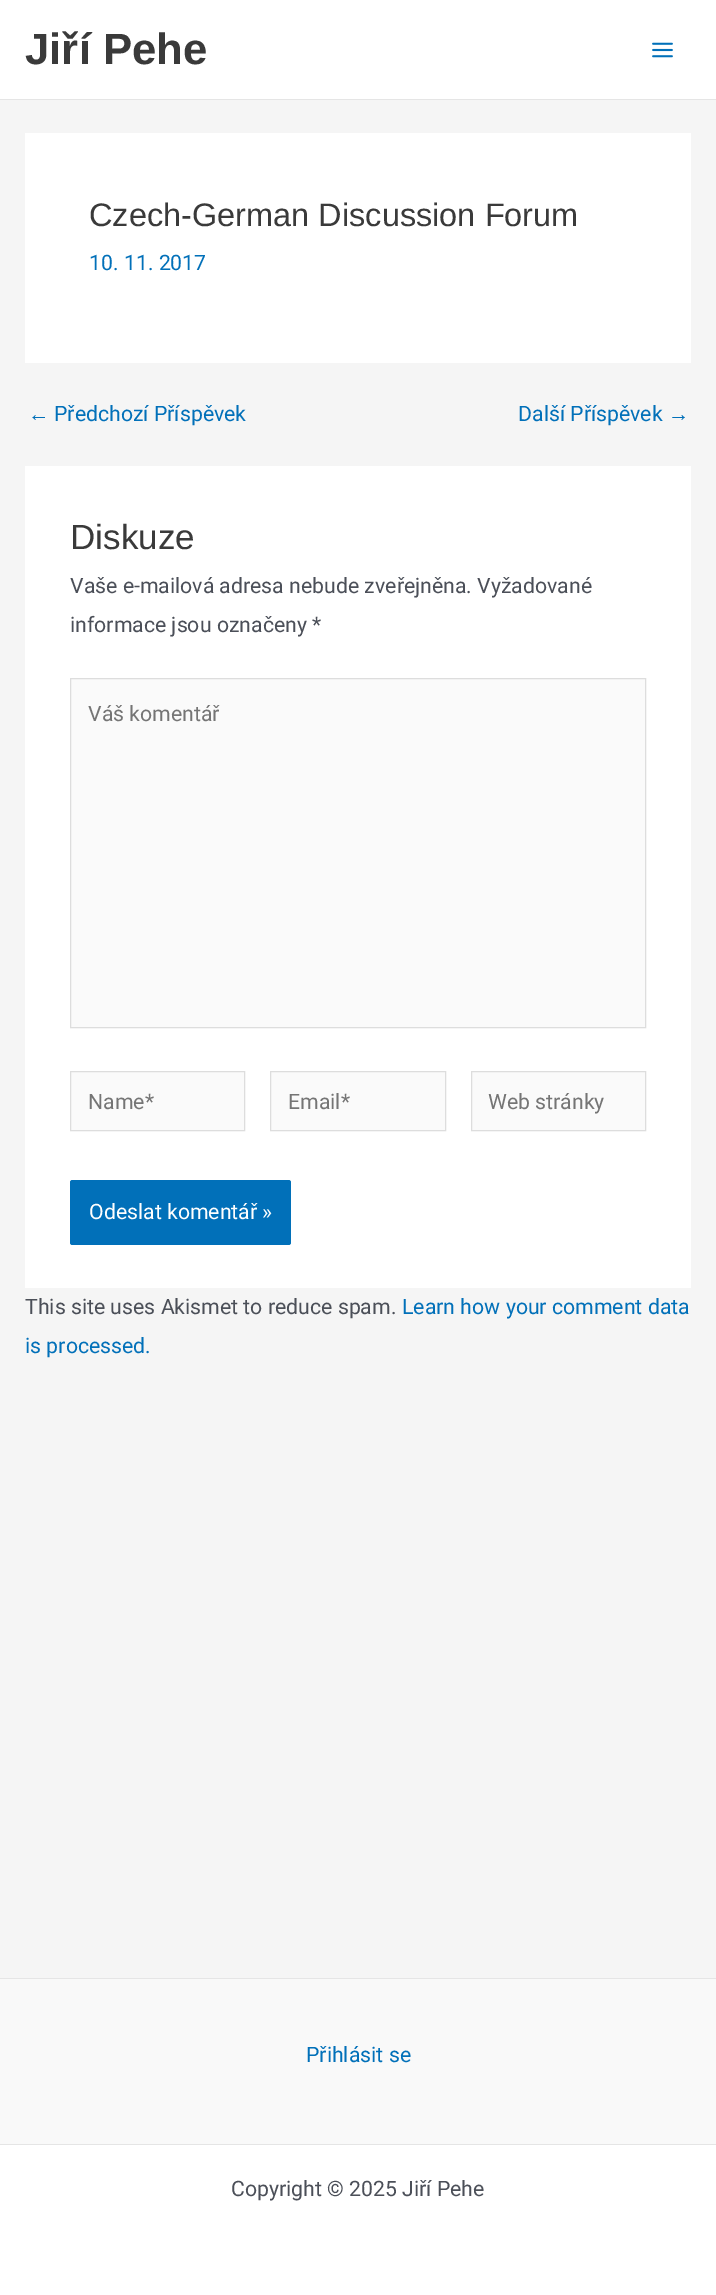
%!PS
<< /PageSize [716 2295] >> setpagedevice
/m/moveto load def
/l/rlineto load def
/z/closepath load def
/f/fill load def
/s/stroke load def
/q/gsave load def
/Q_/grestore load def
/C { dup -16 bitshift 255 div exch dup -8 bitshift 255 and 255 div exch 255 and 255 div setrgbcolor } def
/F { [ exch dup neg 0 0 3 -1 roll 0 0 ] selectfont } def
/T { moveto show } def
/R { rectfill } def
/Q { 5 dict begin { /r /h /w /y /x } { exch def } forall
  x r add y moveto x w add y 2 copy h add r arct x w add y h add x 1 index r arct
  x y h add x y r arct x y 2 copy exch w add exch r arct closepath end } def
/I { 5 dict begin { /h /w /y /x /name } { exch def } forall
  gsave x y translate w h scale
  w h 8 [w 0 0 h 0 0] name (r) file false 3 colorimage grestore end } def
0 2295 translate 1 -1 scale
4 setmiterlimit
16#F5F5F5 C
0 0 716 2295 R
16#FFFFFF C
0 0 716 99 R
16#E5E5E5 C
0 99 716 1 R
/LiberationSans-Bold 43.75 F
16#3A3A3A C
(Jiří Pehe) 25 64 T
(1.rgb) 652 42 21 16 I
16#FFFFFF C
25 133 666 230 R
/LiberationSans-Regular 32.5 F
16#3A3A3A C
(Czech-German Discussion Forum) 89 226 T
/Roboto-Regular 21.25 F
16#0170B9 C
(10. 11. 2017) 89 270 T
/LiberationSans-Regular 21.25 F
(←) 28 421 T
/Roboto-Regular 21.25 F
(Předchozí Příspěvek) 54 421 T
(Další Příspěvek) 518 421 T
/LiberationSans-Regular 21.25 F
(→) 668 421 T
16#FFFFFF C
25 466 666 822 R
/LiberationSans-Regular 35 F
16#3A3A3A C
(Diskuze) 70 549 T
/Roboto-Regular 21.25 F
16#4B4F58 C
(Vaše e-mailová adresa nebude zveřejněna. Vyžadované) 70 593 T
(informace jsou označeny *) 70 632 T
16#FAFAFA C
70.5 678.5 m 575 0 l 0 349 l -575 0 l z q f Q_
16#DDDDDD C
s
16#757575 C
(Váš komentář) 88 721 T
16#FAFAFA C
70.5 1071.5 m 174 0 l 0 59 l -174 0 l z q f Q_
16#DDDDDD C
s
16#757575 C
(Name*) 88 1109 T
16#FAFAFA C
270.5 1071.5 m 175 0 l 0 59 l -175 0 l z q f Q_
16#DDDDDD C
s
16#757575 C
(Email*) 288 1109 T
16#FAFAFA C
471.5 1071.5 m 174 0 l 0 59 l -174 0 l z q f Q_
16#DDDDDD C
s
16#757575 C
(Web stránky) 488 1109 T
16#0170B9 C
70 1180 221 65 2.5 Q f
16#FFFFFF C
(Odeslat komentář ») 89 1219 T
16#4B4F58 C
(This site uses Akismet to reduce spam.) 25 1314 T
16#0170B9 C
(Learn how your comment data) 402 1314 T
(is processed.) 25 1353 T
16#F9F9F9 C
0 1979 716 165 R
16#E5E5E5 C
0 1978 716 1 R
16#0170B9 C
(Přihlásit se) 306 2062 T
16#FFFFFF C
0 2145 716 150 R
16#E5E5E5 C
0 2144 716 1 R
16#4B4F58 C
(Copyright © 2025 Jiří Pehe) 231 2196 T
showpage
